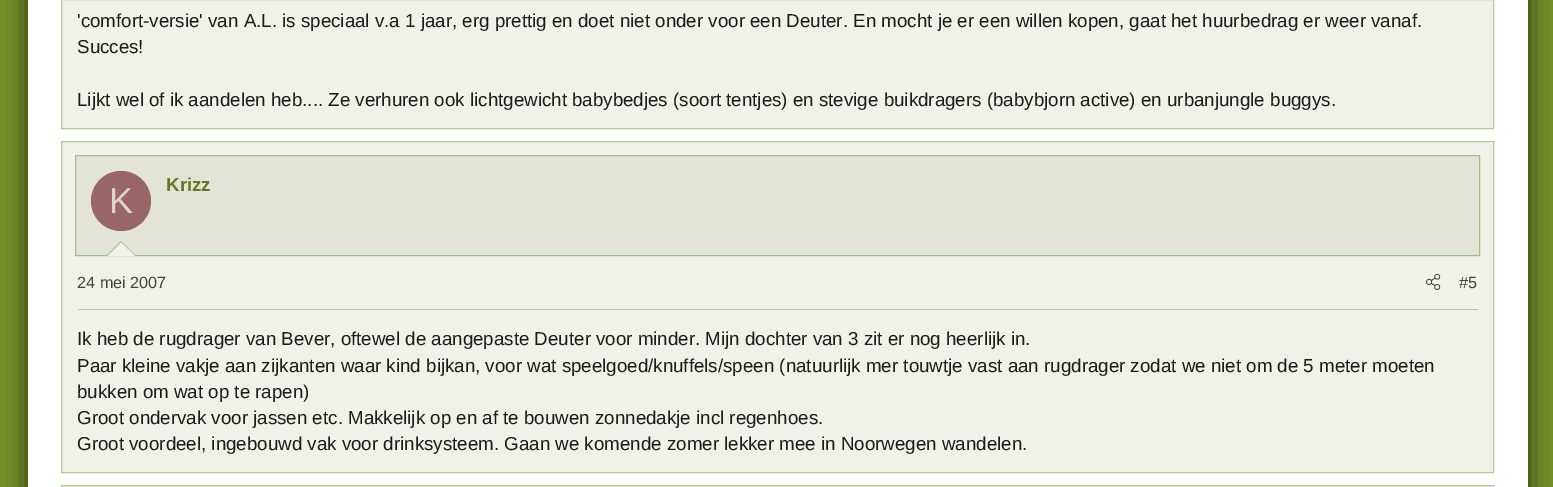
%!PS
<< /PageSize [1553 487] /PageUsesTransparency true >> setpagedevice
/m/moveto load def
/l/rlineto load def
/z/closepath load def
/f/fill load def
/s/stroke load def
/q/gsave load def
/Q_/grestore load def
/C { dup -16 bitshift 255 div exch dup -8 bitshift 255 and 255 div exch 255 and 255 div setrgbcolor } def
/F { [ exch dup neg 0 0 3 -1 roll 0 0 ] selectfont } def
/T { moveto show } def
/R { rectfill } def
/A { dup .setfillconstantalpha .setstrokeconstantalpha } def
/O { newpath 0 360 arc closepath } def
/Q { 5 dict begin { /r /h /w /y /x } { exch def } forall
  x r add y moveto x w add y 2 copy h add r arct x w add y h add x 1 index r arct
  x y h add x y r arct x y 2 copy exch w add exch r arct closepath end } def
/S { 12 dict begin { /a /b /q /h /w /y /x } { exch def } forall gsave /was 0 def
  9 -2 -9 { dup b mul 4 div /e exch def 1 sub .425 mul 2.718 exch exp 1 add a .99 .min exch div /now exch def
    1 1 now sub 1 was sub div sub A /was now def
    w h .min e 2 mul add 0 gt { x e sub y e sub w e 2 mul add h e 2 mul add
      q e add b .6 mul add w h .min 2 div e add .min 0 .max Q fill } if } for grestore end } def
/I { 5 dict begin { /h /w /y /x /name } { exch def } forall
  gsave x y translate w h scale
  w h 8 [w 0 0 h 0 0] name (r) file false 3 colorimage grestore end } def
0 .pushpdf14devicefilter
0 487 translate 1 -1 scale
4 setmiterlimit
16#76912B C
0 0 1553 487 R
16#000000 C
28 -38 1500 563 0 12.5 .65 S
16#FFFFFF C
28 0 1500 487 R
16#F1F1E9 C
61.5 -.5 m 1432 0 l 0 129 l -1432 0 l z q f Q_
16#B1C99C C
s
/LiberationSans-Regular 18.75 F
16#1C1C1C C
('comfort-versie' van A.L. is speciaal v.a 1 jaar, erg prettig en doet niet onder voor een Deuter. En mocht je er een willen kopen, gaat het huurbedrag er weer vanaf.) 77 27 T
(Succes!) 77 53 T
(Lijkt wel of ik aandelen heb.... Ze verhuren ook lichtgewicht babybedjes \(soort tentjes\) en stevige buikdragers \(babybjorn active\) en urbanjungle buggys.) 77 106 T
16#F1F1E9 C
61.5 141.5 m 1432 0 l 0 331 l -1432 0 l z q f Q_
16#B1C99C C
s
16#E3E3D8 C
75.5 155.5 m 1404 0 l 0 100 l -1404 0 l z q f Q_
16#A1BE89 C
s
/LiberationSans-Bold 18.75 F
16#637A24 C
(Krizz) 166 191 T
16#996666 C
121 201 30 O f
/LiberationSans-Regular 36 F
16#E0D1D1 C
(K) 109 213 T
16#A1BE89 C
136 256 m -30 0 l 15 -15 l z f
16#F1F1E9 C
135 256 m -27.5 0 l 13.5 -13.5 l z f
16#B1C99C C
78 309 1400 1 R
/LiberationSans-Regular 16.25 F
16#424242 C
(24 mei 2007) 77 288 T
(1.rgb) 1426 274 15 16 I
(#5) 1459 288 T
/LiberationSans-Regular 18.75 F
16#1C1C1C C
(Ik heb de rugdrager van Bever, oftewel de aangepaste Deuter voor minder. Mijn dochter van 3 zit er nog heerlijk in.) 77 345 T
(Paar kleine vakje aan zijkanten waar kind bijkan, voor wat speelgoed/knuffels/speen \(natuurlijk mer touwtje vast aan rugdrager zodat we niet om de 5 meter moeten) 77 372 T
(bukken om wat op te rapen\)) 77 398 T
(Groot ondervak voor jassen etc. Makkelijk op en af te bouwen zonnedakje incl regenhoes.) 77 424 T
(Groot voordeel, ingebouwd vak voor drinksysteem. Gaan we komende zomer lekker mee in Noorwegen wandelen.) 77 450 T
16#F1F1E9 C
61.5 485.5 m 1432 0 l 0 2 l -1432 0 l z q f Q_
16#B1C99C C
s
.poppdf14devicefilter showpage
